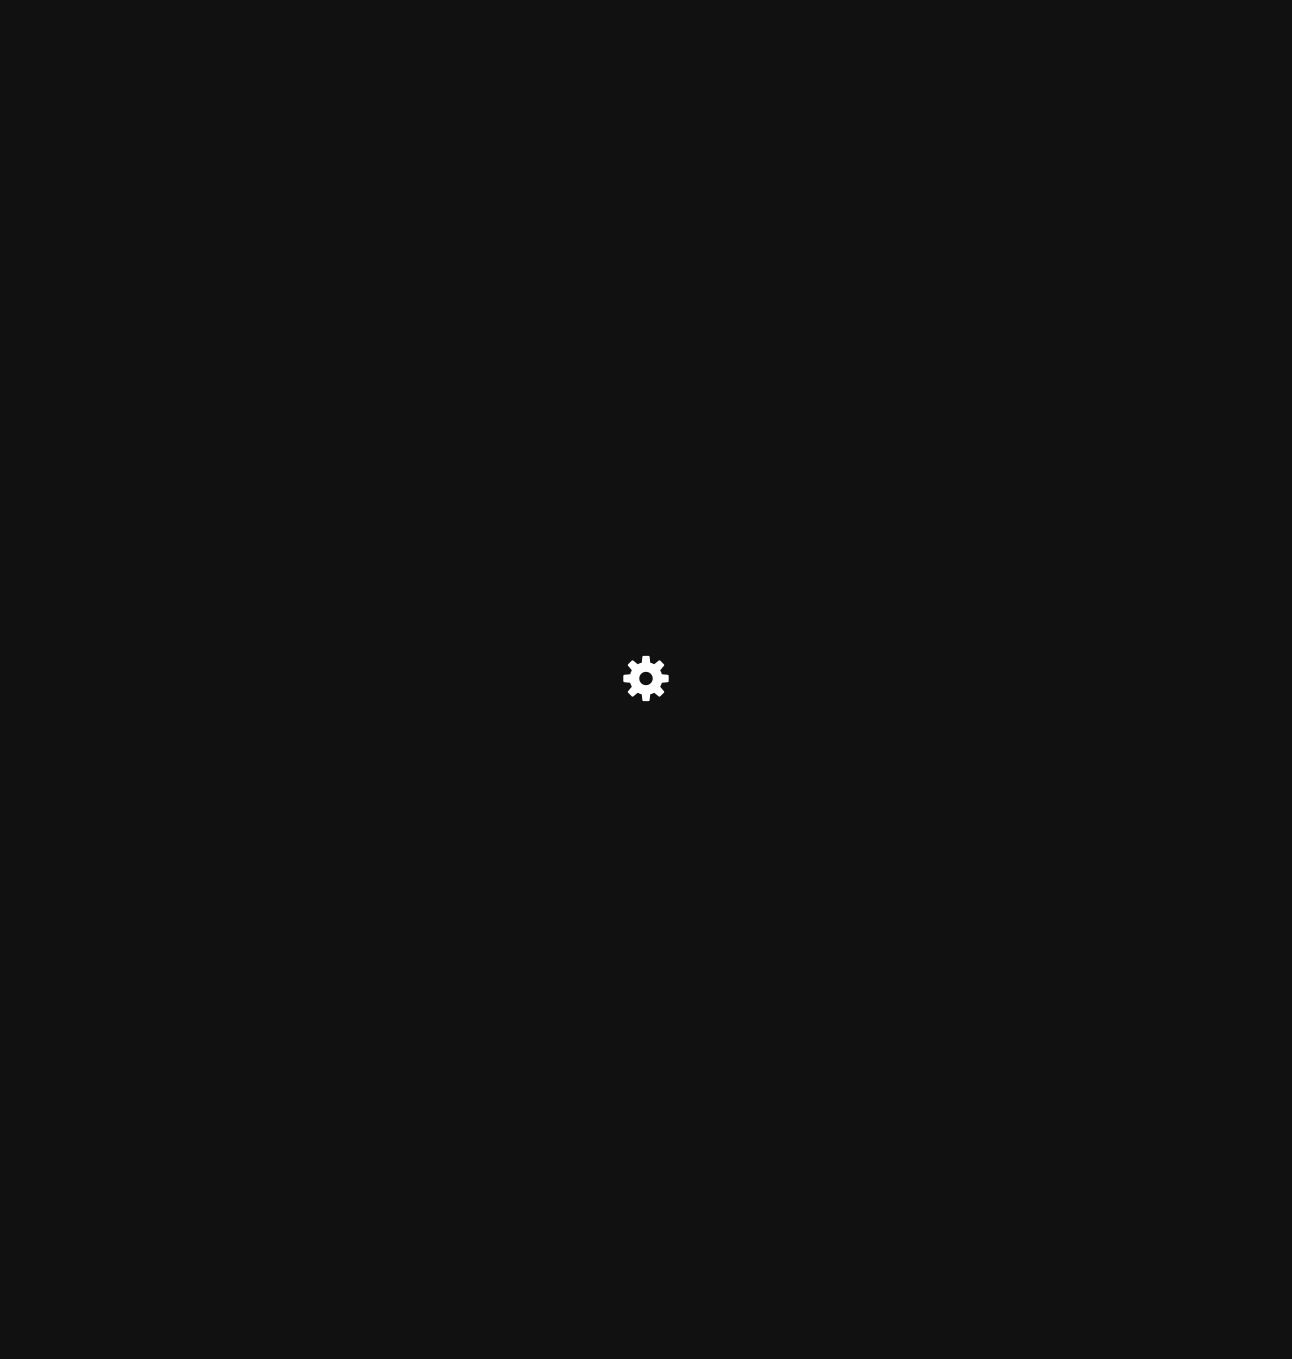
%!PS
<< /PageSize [1292 1359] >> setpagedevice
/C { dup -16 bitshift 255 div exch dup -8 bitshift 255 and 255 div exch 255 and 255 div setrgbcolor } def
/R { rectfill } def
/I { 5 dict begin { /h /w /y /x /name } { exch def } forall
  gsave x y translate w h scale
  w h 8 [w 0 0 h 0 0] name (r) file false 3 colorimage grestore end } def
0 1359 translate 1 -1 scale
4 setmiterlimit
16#111111 C
0 0 1292 1359 R
(1.rgb) 623 655 46 47 I
showpage
